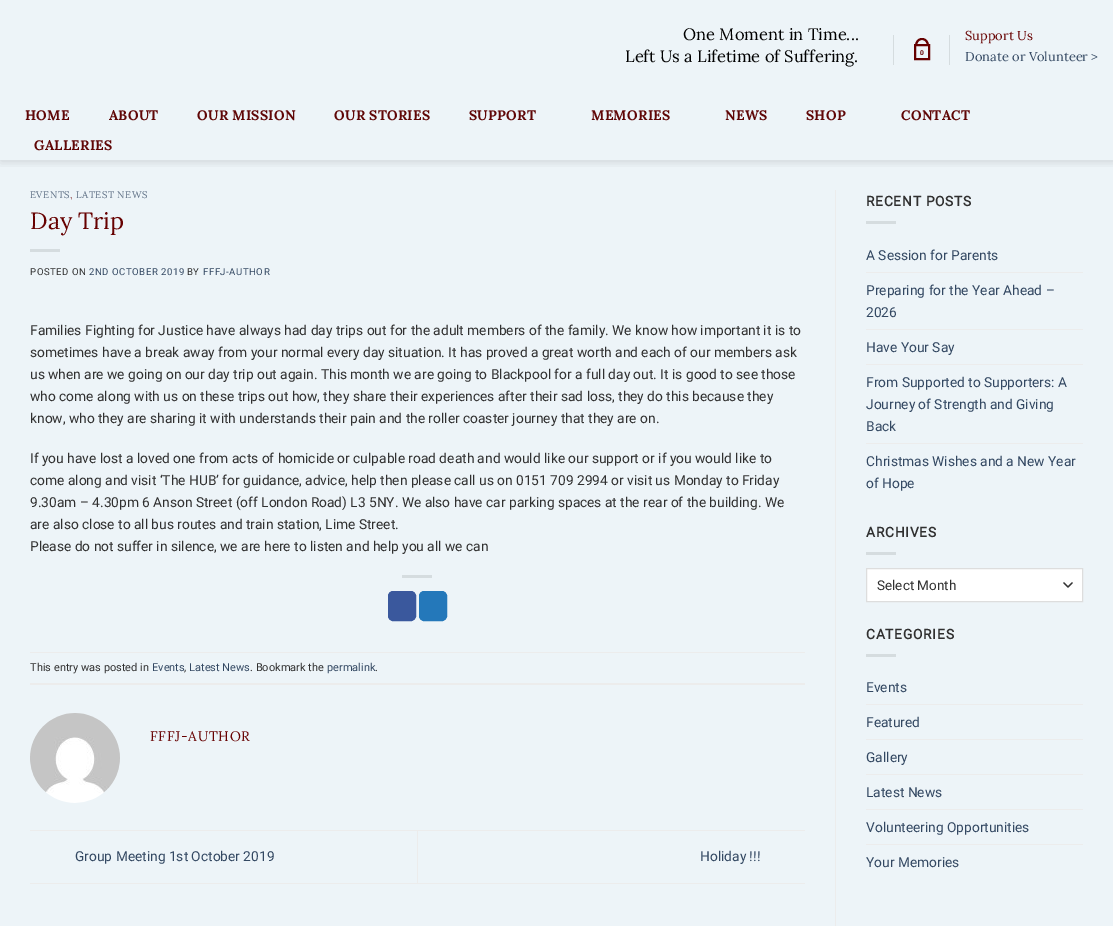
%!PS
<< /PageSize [1113 926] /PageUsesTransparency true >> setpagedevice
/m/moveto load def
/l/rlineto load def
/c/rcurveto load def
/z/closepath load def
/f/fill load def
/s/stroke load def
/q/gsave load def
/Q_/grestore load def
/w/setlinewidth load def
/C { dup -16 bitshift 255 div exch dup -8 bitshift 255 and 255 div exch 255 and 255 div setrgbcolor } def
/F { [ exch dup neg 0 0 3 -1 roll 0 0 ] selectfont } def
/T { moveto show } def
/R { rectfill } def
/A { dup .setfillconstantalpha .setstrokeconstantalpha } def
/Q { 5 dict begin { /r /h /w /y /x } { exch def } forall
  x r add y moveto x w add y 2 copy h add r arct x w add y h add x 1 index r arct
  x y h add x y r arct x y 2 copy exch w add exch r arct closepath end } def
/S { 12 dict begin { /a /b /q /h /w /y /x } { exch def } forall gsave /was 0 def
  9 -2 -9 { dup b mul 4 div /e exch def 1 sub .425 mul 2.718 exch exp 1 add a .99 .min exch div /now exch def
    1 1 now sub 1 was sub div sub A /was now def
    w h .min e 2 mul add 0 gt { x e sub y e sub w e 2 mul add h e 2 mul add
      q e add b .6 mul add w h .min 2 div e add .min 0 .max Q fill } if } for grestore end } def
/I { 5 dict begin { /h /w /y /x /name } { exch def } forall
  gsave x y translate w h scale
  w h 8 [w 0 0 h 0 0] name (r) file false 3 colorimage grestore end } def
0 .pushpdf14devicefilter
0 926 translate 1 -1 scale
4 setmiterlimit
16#EDF4F8 C
0 0 1113 926 R
q
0 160 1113 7 rectclip
16#000000 C
1 1 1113 160 0 5 .15 S
Q_
/Lora-Regular 16.5 F
16#000000 C
(One Moment in Time...) 683 40 T
(Left Us a Lifetime of Suffering.) 625 62 T
16#D5DCDF C
893 35 1 30 R
16#660000 C
2 w
915 45 14 14 rectstroke
922 38 m 4.5 0 7 4 7 8 c -14 0 l 0 -4 2.5 -8 7 -8 c z 922 40 m 3.5 0 5 3 5 6 c -10 0 l 0 -3 1.5 -6 5 -6 c z eofill
/LiberationSans-Bold 7 F
(0) 920 55 T
16#D5DCDF C
949 35 1 30 R
/Lora-Regular 12.9 F
16#660000 C
(Support Us) 965 40 T
16#334862 C
(Donate or Volunteer >) 965 61 T
/Lora-Bold 13.75 F
16#5F0606 C
25 120 m .25 0 (HOME) ashow
109 120 m .25 0 (ABOUT) ashow
197 120 m .25 0 (OUR MISSION) ashow
334 120 m .25 0 (OUR STORIES) ashow
469 120 m .25 0 (SUPPORT) ashow
591 120 m .25 0 (MEMORIES) ashow
725 120 m .25 0 (NEWS) ashow
806 120 m .25 0 (SHOP) ashow
901 120 m .25 0 (CONTACT) ashow
34 150 m .25 0 (GALLERIES) ashow
/Lora-Regular 9.6 F
16#586A80 C
30 198 m .5 0 (EVENTS) ashow
16#813132 C
70 198 m .5 0 (,) ashow
16#586A80 C
76 198 m .5 0 (LATEST NEWS) ashow
/Lora-Regular 23.5 F
16#660000 C
(Day Trip) 30 229 T
16#D5DCDF C
30 249 30 3 R
/Roboto-Regular 9.6 F
16#303030 C
30 275 m .5 0 (POSTED ON) ashow
16#334862 C
89 275 m .5 0 (2ND OCTOBER 2019) ashow
16#303030 C
187 275 m .5 0 (BY) ashow
16#334862 C
203 275 m .5 0 (FFFJ-AUTHOR) ashow
/Roboto-Regular 13.75 F
16#303030 C
(Families Fighting for Justice have always had day trips out for the adult members of the family. We know how important it is to) 30 335 T
(sometimes have a break away from your normal every day situation. It has proved a great worth and each of our members ask) 30 357 T
(us when are we going on our day trip out again. This month we are going to Blackpool for a full day out. It is good to see those) 30 379 T
(who come along with us on these trips out how, they share their experiences after their sad loss, they do this because they) 30 401 T
(know, who they are sharing it with understands their pain and the roller coaster journey that they are on.) 30 423 T
(If you have lost a loved one from acts of homicide or culpable road death and would like our support or if you would like to) 30 463 T
(come along and visit ‘The HUB’ for guidance, advice, help then please call us on 0151 709 2994 or visit us Monday to Friday) 30 485 T
(9.30am – 4.30pm 6 Anson Street \(off London Road\) L3 5NY. We also have car parking spaces at the rear of the building. We) 30 507 T
(are also close to all bus routes and train station, Lime Street.) 30 529 T
(Please do not suffer in silence, we are here to listen and help you all we can) 30 551 T
16#D5DCDF C
402 575 30 3 R
16#3A589D C
388.5 591.5 27 29 4.5 Q q f Q_
1 w
s
16#2478BA C
419.5 591.5 27 29 4.5 Q q f Q_
s
16#ECECEC C
30 652 775 1 R
30 683 775 2 R
/Roboto-Regular 11 F
16#303030 C
(This entry was posted in) 30 671 T
16#334862 C
(Events) 152 671 T
16#303030 C
(,) 184 671 T
16#334862 C
(Latest News) 189 671 T
16#303030 C
(. Bookmark the) 250 671 T
16#334862 C
(permalink) 327 671 T
16#303030 C
(.) 375 671 T
(1.rgb) 30 713 90 90 I
/Lora-Regular 13.75 F
16#660000 C
150 741 m .75 0 (FFFJ-AUTHOR) ashow
16#ECECEC C
30 830 775 1 R
30 883 775 1 R
/Roboto-Regular 13.75 F
16#334862 C
(Group Meeting 1st October 2019) 75 861 T
16#ECECEC C
417 831 1 52 R
16#334862 C
(Holiday !!!) 700 861 T
16#ECECEC C
835 190 1 736 R
/Roboto-Bold 13.75 F
16#303030 C
866 206 m .75 0 (RECENT POSTS) ashow
16#D5DCDF C
866 221 30 3 R
/Roboto-Regular 13.75 F
16#334862 C
(A Session for Parents) 866 260 T
16#ECECEC C
866 272 217 1 R
16#334862 C
(Preparing for the Year Ahead –) 866 295 T
(2026) 866 317 T
16#ECECEC C
866 329 217 1 R
16#334862 C
(Have Your Say) 866 352 T
16#ECECEC C
866 364 217 1 R
16#334862 C
(From Supported to Supporters: A) 866 387 T
(Journey of Strength and Giving) 866 409 T
(Back) 866 431 T
16#ECECEC C
866 443 217 1 R
16#334862 C
(Christmas Wishes and a New Year) 866 466 T
(of Hope) 866 488 T
/Roboto-Bold 13.75 F
16#303030 C
866 537 m .75 0 (ARCHIVES) ashow
16#D5DCDF C
866 552 30 3 R
16#FFFFFF C
867 569 215 32 R
16#333333 C
1.3 w
1 setlinecap
1 setlinejoin
1064 583 m 4 4 l 4 -4 l s
16#DDDDDD C
1 w
0 setlinecap
0 setlinejoin
866.5 568.5 216 33 rectstroke
/Roboto-Regular 13.5 F
16#303030 C
(Select Month) 877 590 T
/Roboto-Bold 13.75 F
866 639 m .75 0 (CATEGORIES) ashow
16#D5DCDF C
866 654 30 3 R
/Roboto-Regular 13.75 F
16#334862 C
(Events) 866 692 T
16#ECECEC C
866 704 217 1 R
16#334862 C
(Featured) 866 727 T
16#ECECEC C
866 739 217 1 R
16#334862 C
(Gallery) 866 762 T
16#ECECEC C
866 774 217 1 R
16#334862 C
(Latest News) 866 797 T
16#ECECEC C
866 809 217 1 R
16#334862 C
(Volunteering Opportunities) 866 832 T
16#ECECEC C
866 844 217 1 R
16#334862 C
(Your Memories) 866 867 T
.poppdf14devicefilter showpage
